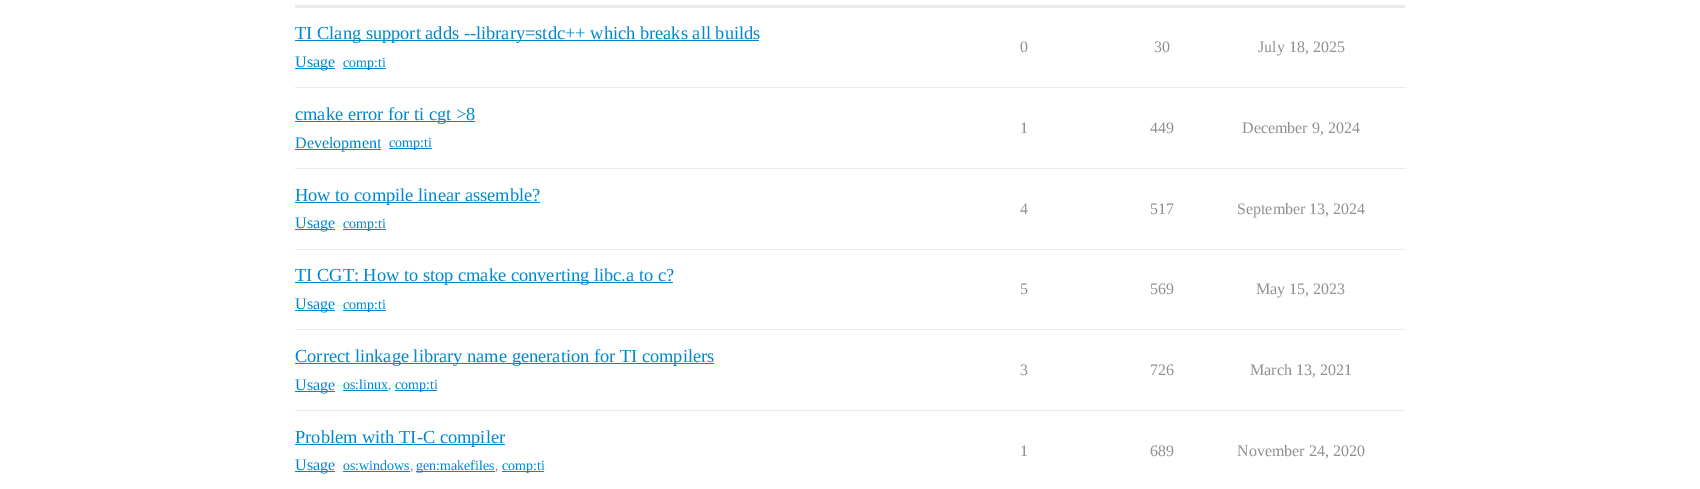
%!PS
<< /PageSize [1700 489] >> setpagedevice
/C { dup -16 bitshift 255 div exch dup -8 bitshift 255 and 255 div exch 255 and 255 div setrgbcolor } def
/F { [ exch dup neg 0 0 3 -1 roll 0 0 ] selectfont } def
/T { moveto show } def
/R { rectfill } def
0 489 translate 1 -1 scale
4 setmiterlimit
16#FFFFFF C
0 0 1700 489 R
16#E9E9E9 C
295 5 1110 3 R
295 87 1110 1 R
16#0088CC C
295 40 464 1 R
/LiberationSerif-Regular 18.4 F
(TI Clang support adds --library=stdc++ which breaks all builds) 295 39 T
295 68 40 1 R
/LiberationSerif-Regular 16 F
(Usage) 295 67 T
343 68 43 1 R
/LiberationSerif-Regular 14 F
(comp:ti) 343 67 T
/LiberationSerif-Regular 16 F
16#919191 C
(0) 1020 52 T
(30) 1154 52 T
(July 18, 2025) 1258 52 T
16#E9E9E9 C
295 168 1110 1 R
16#0088CC C
295 121 180 1 R
/LiberationSerif-Regular 18.4 F
(cmake error for ti cgt >8) 295 120 T
295 149 86 1 R
/LiberationSerif-Regular 16 F
(Development) 295 148 T
389 148 43 1 R
/LiberationSerif-Regular 14 F
(comp:ti) 389 147 T
/LiberationSerif-Regular 16 F
16#919191 C
(1) 1020 133 T
(449) 1150 133 T
(December 9, 2024) 1242 133 T
16#E9E9E9 C
295 249 1110 1 R
16#0088CC C
295 202 245 1 R
/LiberationSerif-Regular 18.4 F
(How to compile linear assemble?) 295 201 T
295 229 40 1 R
/LiberationSerif-Regular 16 F
(Usage) 295 228 T
343 229 43 1 R
/LiberationSerif-Regular 14 F
(comp:ti) 343 228 T
/LiberationSerif-Regular 16 F
16#919191 C
(4) 1020 214 T
(517) 1150 214 T
(September 13, 2024) 1237 214 T
16#E9E9E9 C
295 329 1110 1 R
16#0088CC C
295 282 378 1 R
/LiberationSerif-Regular 18.4 F
(TI CGT: How to stop cmake converting libc.a to c?) 295 281 T
295 310 40 1 R
/LiberationSerif-Regular 16 F
(Usage) 295 309 T
343 310 43 1 R
/LiberationSerif-Regular 14 F
(comp:ti) 343 309 T
/LiberationSerif-Regular 16 F
16#919191 C
(5) 1020 294 T
(569) 1150 294 T
(May 15, 2023) 1256 294 T
16#E9E9E9 C
295 410 1110 1 R
16#0088CC C
295 363 419 1 R
/LiberationSerif-Regular 18.4 F
(Correct linkage library name generation for TI compilers) 295 362 T
295 391 40 1 R
/LiberationSerif-Regular 16 F
(Usage) 295 390 T
/LiberationSerif-Regular 14 F
(os:linux) 343 389 T
343 390 45 1 R
16#919191 C
(,) 388 389 T
16#0088CC C
395 390 42 1 R
(comp:ti) 395 389 T
/LiberationSerif-Regular 16 F
16#919191 C
(3) 1020 375 T
(726) 1150 375 T
(March 13, 2021) 1250 375 T
16#0088CC C
295 444 210 1 R
/LiberationSerif-Regular 18.4 F
(Problem with TI-C compiler) 295 443 T
295 471 40 1 R
/LiberationSerif-Regular 16 F
(Usage) 295 470 T
/LiberationSerif-Regular 14 F
(os:windows) 343 470 T
343 471 67 1 R
16#919191 C
(,) 410 470 T
16#0088CC C
416 471 79 1 R
(gen:makefiles) 416 470 T
16#919191 C
(,) 495 470 T
16#0088CC C
502 471 42 1 R
(comp:ti) 502 470 T
/LiberationSerif-Regular 16 F
16#919191 C
(1) 1020 456 T
(689) 1150 456 T
(November 24, 2020) 1237 456 T
showpage
